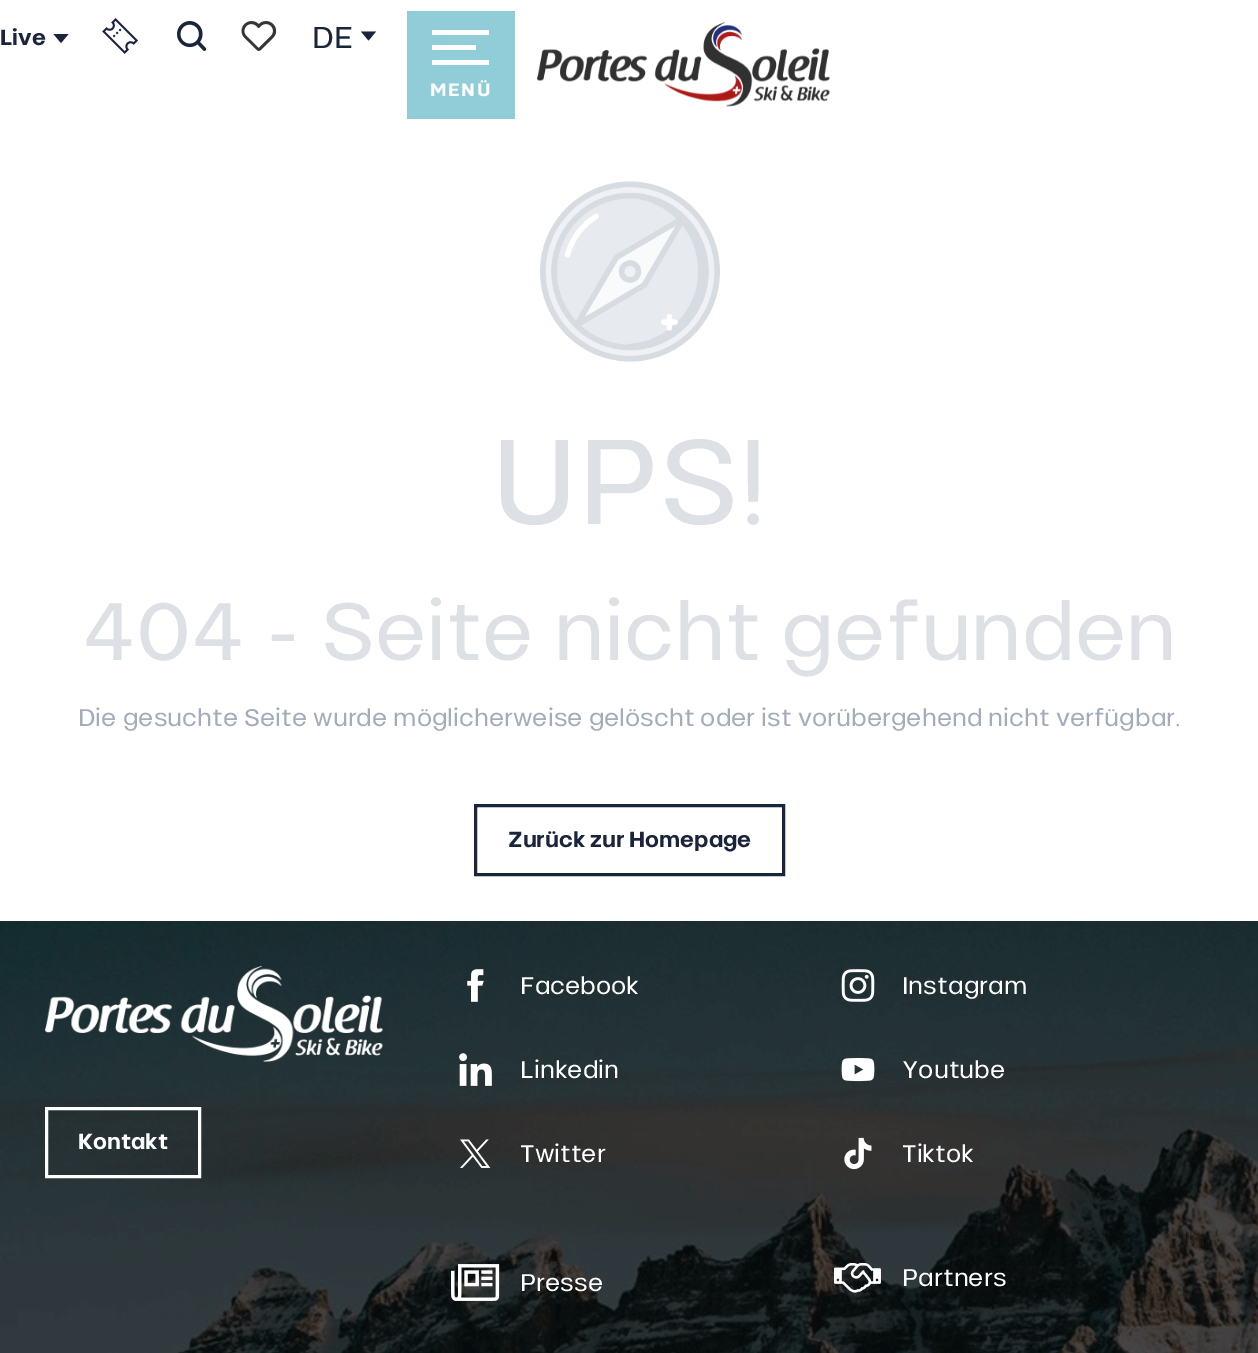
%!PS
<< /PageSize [1258 1353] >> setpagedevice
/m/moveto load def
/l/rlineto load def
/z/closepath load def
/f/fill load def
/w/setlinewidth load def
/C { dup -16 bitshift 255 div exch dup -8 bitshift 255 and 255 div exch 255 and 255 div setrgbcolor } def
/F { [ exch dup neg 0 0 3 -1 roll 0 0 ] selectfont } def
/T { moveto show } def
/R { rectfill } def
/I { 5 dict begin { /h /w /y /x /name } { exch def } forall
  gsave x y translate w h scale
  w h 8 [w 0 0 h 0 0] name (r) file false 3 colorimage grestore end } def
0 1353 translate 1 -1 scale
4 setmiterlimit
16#FFFFFF C
0 0 1258 1353 R
/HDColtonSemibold-SemiBold 21.6 F
16#1A253D C
(Live) 0 45 T
53.5 34 m 15 0 l -7.5 9 l z f
(1.rgb) 102 18 36 36 I
(2.rgb) 177 21 30 30 I
(3.rgb) 241 21 36 30 I
/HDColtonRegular-Regular 30 F
(DE) 312 48 T
361 31.5 m 15 0 l -7.5 9 l z f
16#91CDD8 C
407 11 108 108 R
16#FFFFFF C
432 30 57 5 R
432 45 44 5 R
432 60 57 5 R
/HDColtonSemibold-SemiBold 18 F
430 96 m 1.5 0 (MENÜ) ashow
(4.rgb) 537 22 293 85 I
(5.rgb) 540 181 180 181 I
/HDColtonRegular-Regular 120 F
16#DDE1E6 C
(UPS!) 491 524 T
/HDColtonRegular-Regular 81 F
(404 - Seite nicht gefunden) 82 660 T
/HDColtonRegular-Regular 24 F
16#A2ADBB C
(Die gesuchte Seite wurde möglicherweise gelöscht oder ist vorübergehend nicht verfügbar.) 78 726 T
16#1A253D C
3 w
475.5 805.5 308 69 rectstroke
477 807 m .5 0 l -.5 .5 l z f
/HDColtonSemibold-SemiBold 21.6 F
(Zurück zur Homepage) 508 847 T
(6.rgb) 0 921 1258 432 I
(7.rgb) 45 966 338 96 I
16#FFFFFF C
46.5 1108.5 153 68 rectstroke
(Kontakt) 78 1149 T
(8.rgb) 467 969 17 33 I
/HDColtonRegular-Regular 24 F
(Facebook) 520 994 T
(9.rgb) 841 969 34 33 I
(Instagram) 902 994 T
(10.rgb) 459 1053 33 33 I
(Linkedin) 520 1078 T
(11.rgb) 841 1058 34 24 I
(Youtube) 902 1078 T
(12.rgb) 460 1139 31 29 I
(Twitter) 520 1162 T
(13.rgb) 844 1137 28 33 I
(Tiktok) 902 1162 T
(14.rgb) 451 1264 49 37 I
(Presse) 520 1291 T
(15.rgb) 834 1263 47 30 I
(Partners) 902 1286 T
showpage
